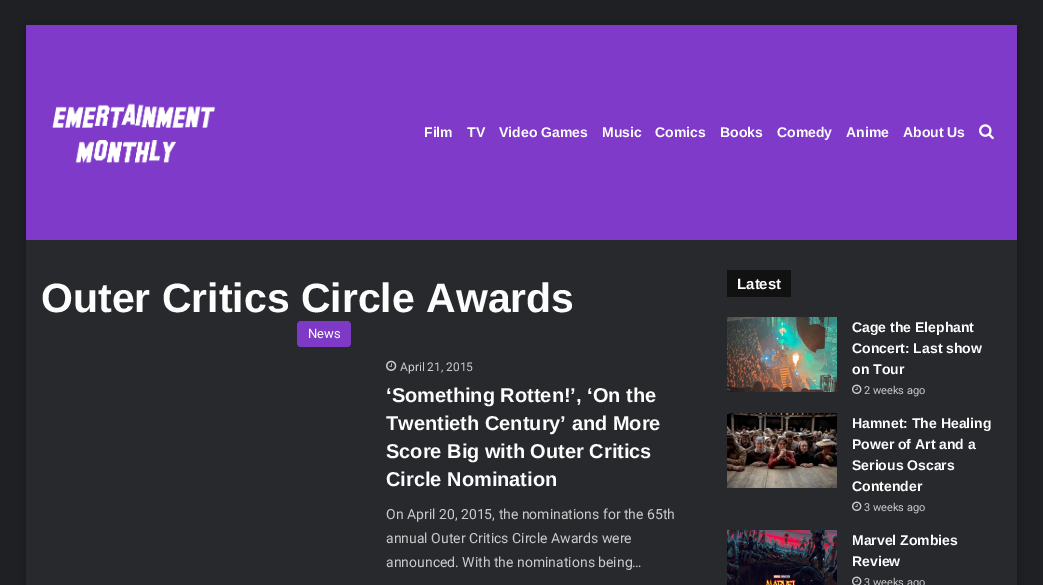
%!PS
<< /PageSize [1043 585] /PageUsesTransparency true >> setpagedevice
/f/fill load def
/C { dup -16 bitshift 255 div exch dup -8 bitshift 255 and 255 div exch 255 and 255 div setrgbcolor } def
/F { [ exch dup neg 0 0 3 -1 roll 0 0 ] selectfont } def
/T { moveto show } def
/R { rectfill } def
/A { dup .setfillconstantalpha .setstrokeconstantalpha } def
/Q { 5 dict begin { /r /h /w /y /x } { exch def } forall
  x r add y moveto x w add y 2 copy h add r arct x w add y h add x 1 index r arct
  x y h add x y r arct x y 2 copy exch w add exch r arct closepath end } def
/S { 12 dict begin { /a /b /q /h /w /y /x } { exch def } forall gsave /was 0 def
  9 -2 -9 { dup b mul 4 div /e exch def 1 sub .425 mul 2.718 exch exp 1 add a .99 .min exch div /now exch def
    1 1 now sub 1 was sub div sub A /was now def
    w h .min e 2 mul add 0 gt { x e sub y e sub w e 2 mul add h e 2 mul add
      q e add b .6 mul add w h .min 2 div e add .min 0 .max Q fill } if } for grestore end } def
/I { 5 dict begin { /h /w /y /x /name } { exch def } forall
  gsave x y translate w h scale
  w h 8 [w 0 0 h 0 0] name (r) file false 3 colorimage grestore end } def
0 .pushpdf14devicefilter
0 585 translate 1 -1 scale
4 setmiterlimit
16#1F2024 C
0 0 1043 585 R
16#000000 C
26 26 991 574 0 5 .3 S
16#27292D C
26 240 991 345 R
16#7F3AC9 C
26 25 991 215 R
(1.rgb) 52 103 164 61 I
/LiberationSans-Bold 14 F
16#FDFDFD C
(Film) 424 137 T
(TV) 467 137 T
(Video Games) 499 137 T
(Music) 602 137 T
(Comics) 655 137 T
(Books) 720 137 T
(Comedy) 777 137 T
(Anime) 846 137 T
(About Us) 903 137 T
(2.rgb) 979 124 15 16 I
/LiberationSans-Bold 41 F
(Outer Critics Circle Awards) 41 312 T
16#7E3AC7 C
297 321 54 26 4 Q f
/Roboto-Regular 13 F
16#FDFDFD C
(News) 308 338 T
(3.rgb) 386 360 11 11 I
/Roboto-Regular 12 F
16#CACACA C
(April 21, 2015) 400 371 T
/LiberationSans-Bold 20 F
16#FDFDFD C
(‘Something Rotten!’, ‘On the) 386 402 T
(Twentieth Century’ and More) 386 430 T
(Score Big with Outer Critics) 386 458 T
(Circle Nomination) 386 486 T
/Roboto-Regular 14 F
16#CACACA C
(On April 20, 2015, the nominations for the 65th) 386 519 T
(annual Outer Critics Circle Awards were) 386 543 T
(announced. With the nominations being…) 386 567 T
16#111112 C
727 270 64 27 R
/LiberationSans-Bold 15 F
16#FDFDFD C
(Latest) 737 289 T
(4.rgb) 727 317 110 75 I
/LiberationSans-Bold 14 F
(Cage the Elephant) 852 332 T
(Concert: Last show) 852 353 T
(on Tour) 852 374 T
(5.rgb) 852 384 10 10 I
/Roboto-Regular 11 F
16#CACACA C
(2 weeks ago) 864 394 T
(6.rgb) 727 413 110 75 I
/LiberationSans-Bold 14 F
16#FDFDFD C
(Hamnet: The Healing) 852 428 T
(Power of Art and a) 852 449 T
(Serious Oscars) 852 470 T
(Contender) 852 491 T
(5.rgb) 852 501 10 10 I
/Roboto-Regular 11 F
16#CACACA C
(3 weeks ago) 864 511 T
(7.rgb) 727 530 110 55 I
/LiberationSans-Bold 14 F
16#FDFDFD C
(Marvel Zombies) 852 545 T
(Review) 852 566 T
(8.rgb) 852 576 10 9 I
/Roboto-Regular 11 F
16#CACACA C
(3 weeks ago) 864 586 T
.poppdf14devicefilter showpage
